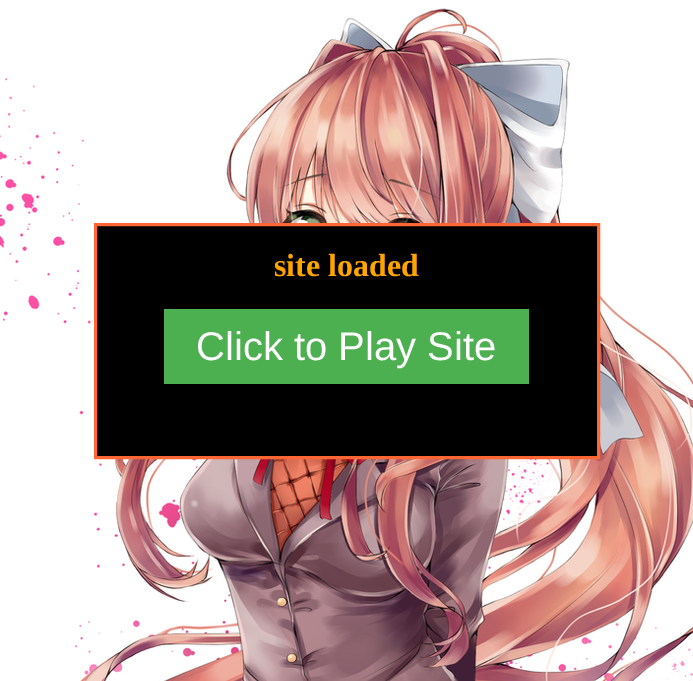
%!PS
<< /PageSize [693 681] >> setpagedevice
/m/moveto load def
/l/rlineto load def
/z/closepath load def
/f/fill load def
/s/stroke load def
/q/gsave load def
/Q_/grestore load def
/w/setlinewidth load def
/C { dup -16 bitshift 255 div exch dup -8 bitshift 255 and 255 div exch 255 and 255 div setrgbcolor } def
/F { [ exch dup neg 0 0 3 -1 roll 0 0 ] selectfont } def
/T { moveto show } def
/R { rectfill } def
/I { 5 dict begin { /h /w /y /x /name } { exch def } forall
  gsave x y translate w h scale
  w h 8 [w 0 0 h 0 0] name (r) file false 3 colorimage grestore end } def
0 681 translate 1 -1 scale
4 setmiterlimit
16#FFFFFF C
0 0 693 681 R
(1.rgb) 0 8 693 673 I
16#000000 C
95.5 224.5 m 503 0 l 0 233 l -503 0 l z q f Q_
16#FF6633 C
3 w
s
/LiberationSerif-Bold 32 F
16#FFA500 C
(site loaded) 274 276 T
16#4CAF50 C
164 309 365 75 R
/LiberationSans-Regular 40 F
16#FFFFFF C
(Click to Play Site) 196 360 T
showpage
